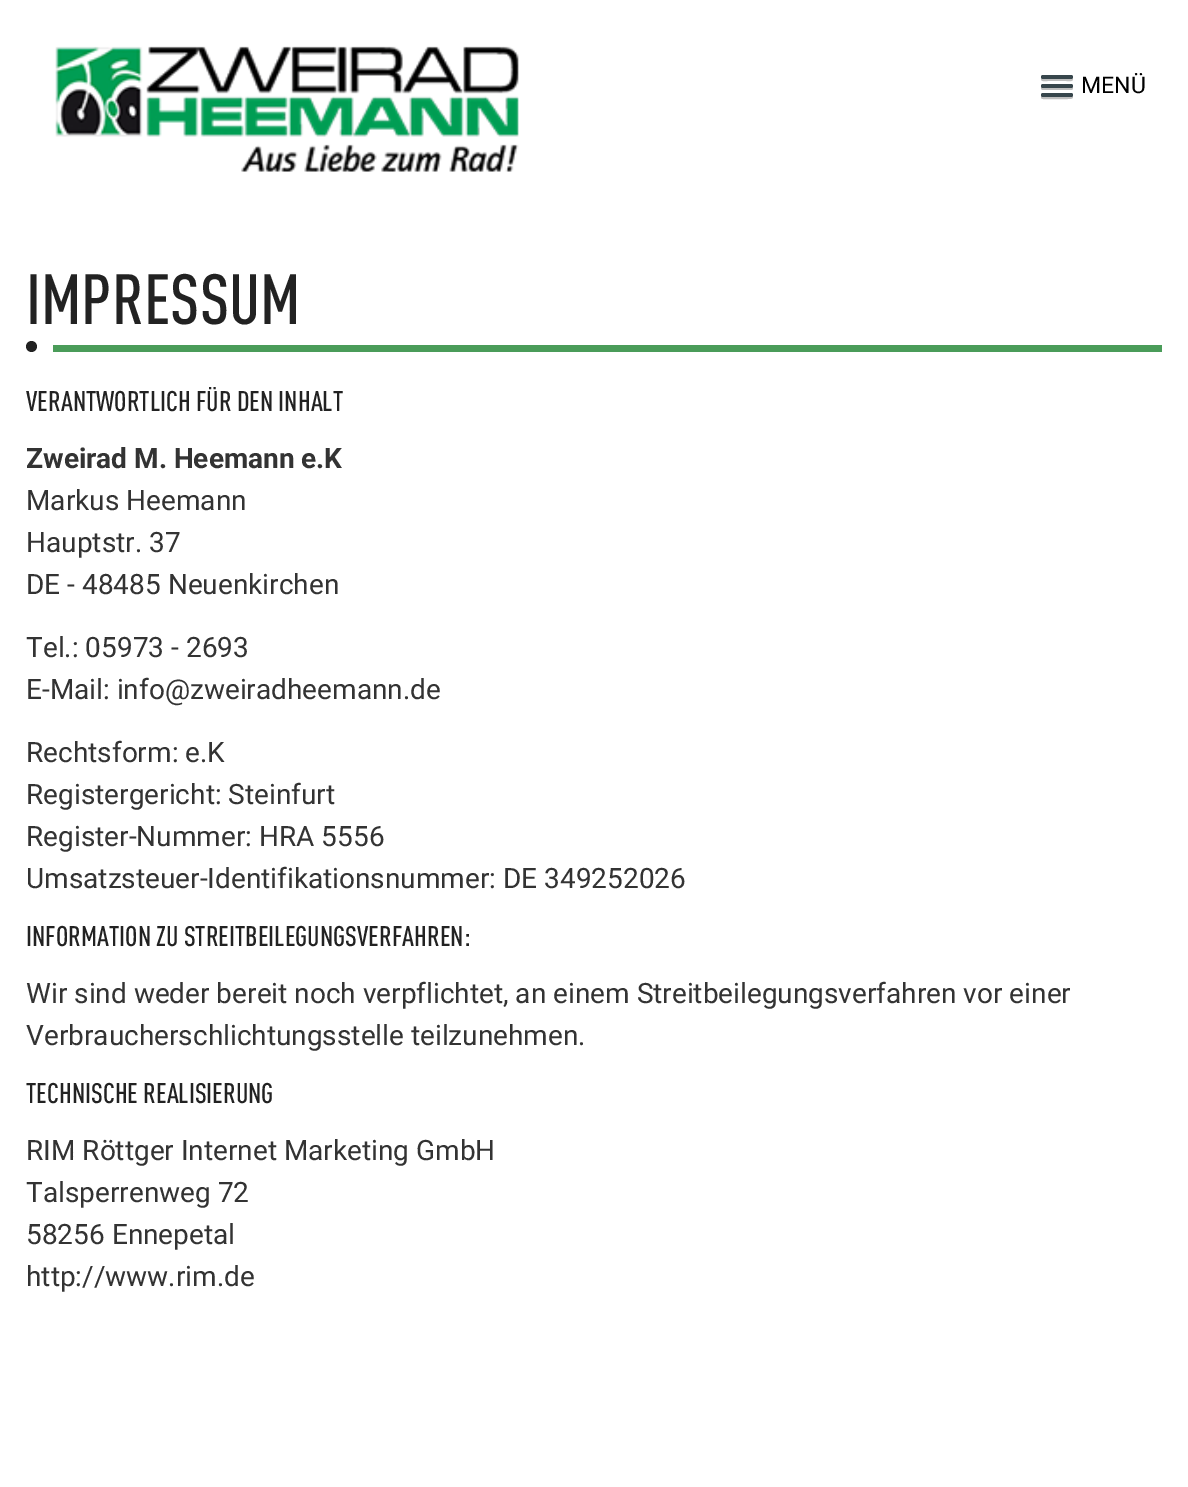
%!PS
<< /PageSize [1188 1487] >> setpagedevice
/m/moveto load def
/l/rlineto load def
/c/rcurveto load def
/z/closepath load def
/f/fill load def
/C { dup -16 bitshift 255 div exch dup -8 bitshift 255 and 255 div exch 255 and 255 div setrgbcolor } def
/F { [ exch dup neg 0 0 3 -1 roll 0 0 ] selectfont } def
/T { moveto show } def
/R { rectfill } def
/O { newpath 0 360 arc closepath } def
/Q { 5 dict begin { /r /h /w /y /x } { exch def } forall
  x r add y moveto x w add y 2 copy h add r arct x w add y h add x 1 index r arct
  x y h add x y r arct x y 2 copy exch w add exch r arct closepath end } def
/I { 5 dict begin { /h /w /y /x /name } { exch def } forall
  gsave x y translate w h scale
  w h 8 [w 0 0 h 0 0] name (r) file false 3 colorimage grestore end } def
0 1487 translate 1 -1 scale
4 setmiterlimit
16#FFFFFF C
0 0 1188 1487 R
(1.rgb) 55 46 464 126 I
16#BFBFBF C
1041.5 78 m -.5 1.5 l .5 2.5 5.5 1.5 6.5 1.5 c 19 0 l 1 0 6 1 6.5 -1.5 c -.5 -1.5 l 0 .5 -1 1 -1.5 1 c -28 0 l -.5 0 -1.5 -.5 -1.5 -1 c z f
16#37464C C
1041 75 32 4 2 Q f
16#BFBFBF C
1041.5 86.5 m -1 1.5 -.5 3 1 3.5 c 29 0 l 1.5 -.5 2 -2 1 -3.5 c -1.5 1 l -28 0 l z f
16#37464C C
1041 84 32 4 2 Q f
16#BFBFBF C
1041.5 95.5 m -1 1.5 -.5 3.5 1.5 3.5 c 3.5 0 28 .5 29 -.5 c 1 -.5 1.5 -2 .5 -3 c -1.5 .5 l -28 0 l z f
16#37464C C
1041 93 32 4 2 Q f
/Roboto-Regular 23 F
16#000000 C
(MENÜ) 1081 93 T
/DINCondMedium-Medium 70 F
16#222222 C
(IMPRESSUM) 26 324 T
31.5 346.5 5.5 O f
16#4A9C59 C
53 345 1109 7 R
/DINCondMedium-Medium 28 F
16#222222 C
(VERANTWORTLICH FÜR DEN INHALT) 26 411 T
/Roboto-Bold 28 F
16#333333 C
(Zweirad M. Heemann e.K) 26 468 T
/Roboto-Regular 28 F
(Markus Heemann) 26 510 T
(Hauptstr. 37) 26 552 T
(DE - 48485 Neuenkirchen) 26 594 T
(Tel.: 05973 - 2693) 26 657 T
(E-Mail: info@zweiradheemann.de) 26 699 T
(Rechtsform: e.K) 26 762 T
(Registergericht: Steinfurt) 26 804 T
(Register-Nummer: HRA 5556) 26 846 T
(Umsatzsteuer-Identifikationsnummer: DE 349252026) 26 888 T
/DINCondMedium-Medium 28 F
16#222222 C
(INFORMATION ZU STREITBEILEGUNGSVERFAHREN:) 26 946 T
/Roboto-Regular 28 F
16#333333 C
(Wir sind weder bereit noch verpflichtet, an einem Streitbeilegungsverfahren vor einer) 26 1003 T
(Verbraucherschlichtungsstelle teilzunehmen.) 26 1045 T
/DINCondMedium-Medium 28 F
16#222222 C
(TECHNISCHE REALISIERUNG) 26 1103 T
/Roboto-Regular 28 F
16#333333 C
(RIM Röttger Internet Marketing GmbH) 26 1160 T
(Talsperrenweg 72) 26 1202 T
(58256 Ennepetal) 26 1244 T
(http://www.rim.de) 26 1286 T
showpage
